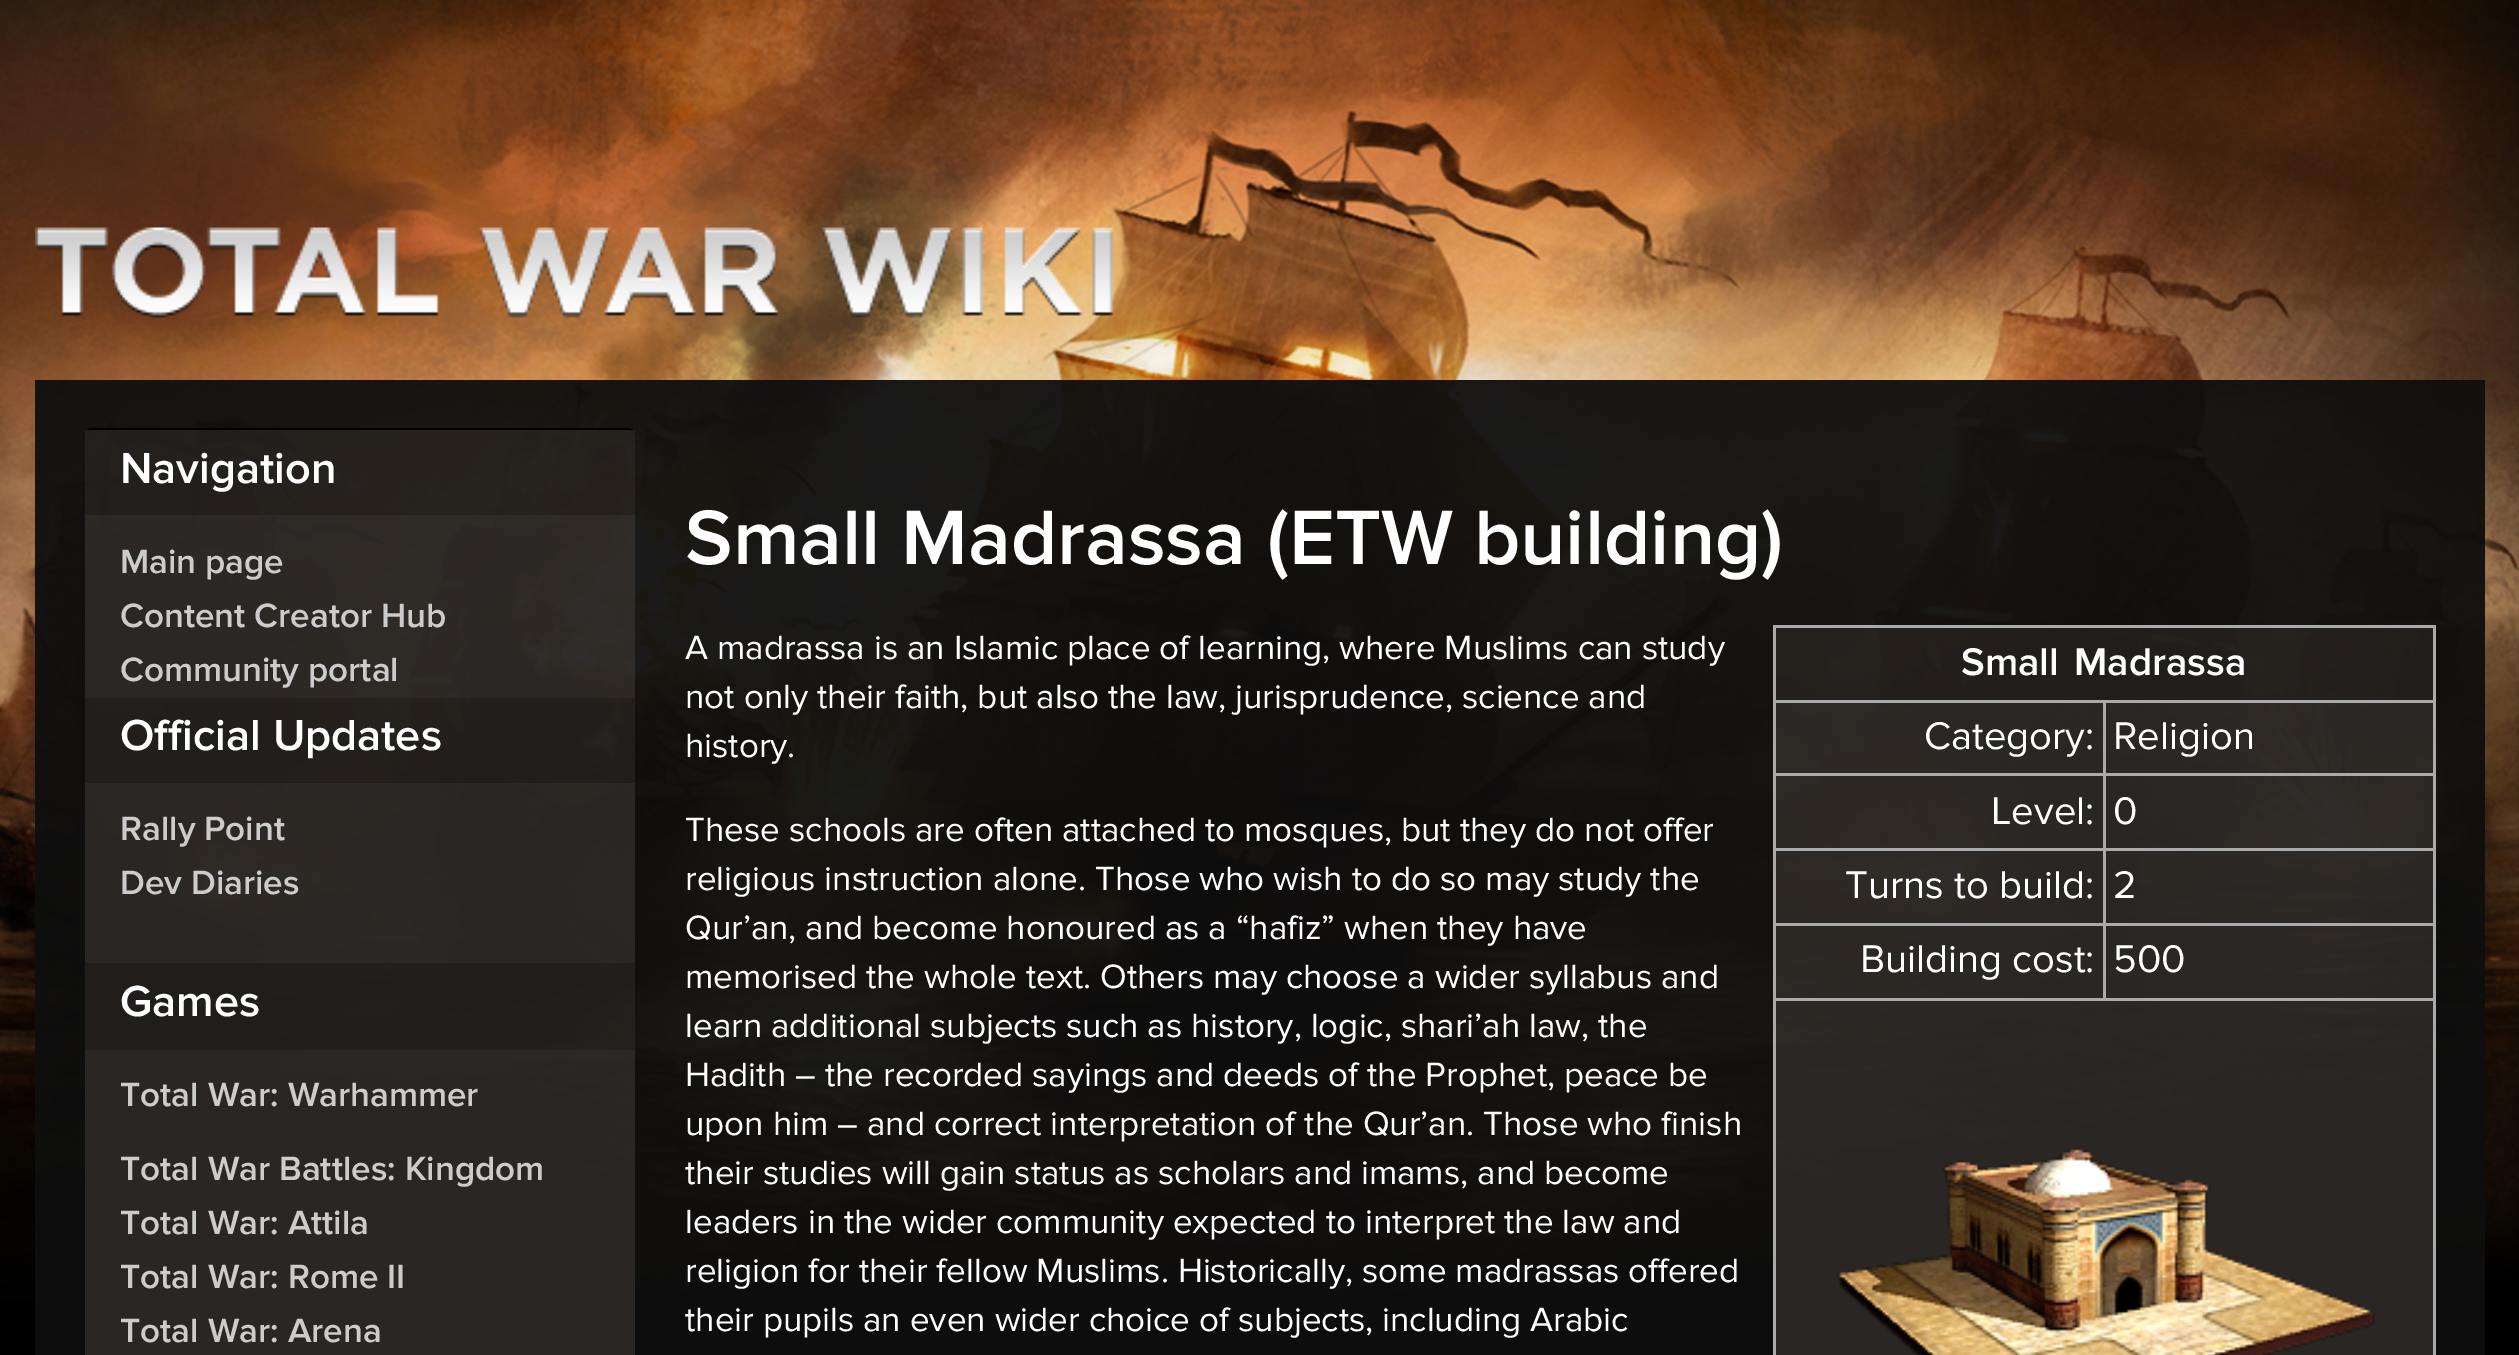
%!PS
<< /PageSize [2519 1355] /PageUsesTransparency true >> setpagedevice
/m/moveto load def
/l/rlineto load def
/c/rcurveto load def
/z/closepath load def
/f/fill load def
/C { dup -16 bitshift 255 div exch dup -8 bitshift 255 and 255 div exch 255 and 255 div setrgbcolor } def
/F { [ exch dup neg 0 0 3 -1 roll 0 0 ] selectfont } def
/T { moveto show } def
/R { rectfill } def
/A { dup .setfillconstantalpha .setstrokeconstantalpha } def
/I { 5 dict begin { /h /w /y /x /name } { exch def } forall
  gsave x y translate w h scale
  w h 8 [w 0 0 h 0 0] name (r) file false 3 colorimage grestore end } def
0 .pushpdf14devicefilter
0 1355 translate 1 -1 scale
4 setmiterlimit
16#000000 C
0 0 2519 1355 R
(1.rgb) 0 0 2519 1301 I
(2.rgb) 35 227 1079 91 I
0.95 A
16#0E0E0E C
35 380 2450 975 R
1 A
16#000000 C
92 428 m -4 0 -7 3 -7 7 c 0 -3 3 -5 7 -5 c 536 0 l 4 0 7 2 7 5 c 0 -4 -3 -7 -7 -7 c z f
0.5 A
16#322C27 C
85 430 550 85 R
/ProximaNova-SemiBold 45 F
1 A
16#FFFFFF C
(Navigation) 120 483 T
0.5 A
16#443E39 C
85 515 550 75 R
/ProximaNova-SemiBold 35 F
1 A
16#CCCCCC C
(Main page) 120 573 T
0.5 A
16#443E39 C
85 590 550 53 R
1 A
16#CCCCCC C
(Content Creator Hub) 120 627 T
0.5 A
16#443E39 C
85 643 550 55 R
1 A
16#CCCCCC C
(Community portal) 120 681 T
0.5 A
16#322C27 C
85 698 550 85 R
/ProximaNova-SemiBold 45 F
1 A
16#FFFFFF C
(Official Updates) 120 750 T
0.5 A
16#443E39 C
85 783 550 75 R
/ProximaNova-SemiBold 35 F
1 A
16#CCCCCC C
(Rally Point) 120 840 T
0.5 A
16#443E39 C
85 858 550 105 R
1 A
16#CCCCCC C
(Dev Diaries) 120 894 T
0.5 A
16#322C27 C
85 963 550 87 R
/ProximaNova-SemiBold 45 F
1 A
16#FFFFFF C
(Games) 120 1016 T
0.5 A
16#443E39 C
85 1050 550 73 R
/ProximaNova-SemiBold 35 F
1 A
16#CCCCCC C
(Total War: Warhammer) 120 1106 T
0.5 A
16#443E39 C
85 1123 550 75 R
1 A
16#CCCCCC C
(Total War Battles: Kingdom) 120 1180 T
0.5 A
16#443E39 C
85 1198 550 52 R
1 A
16#CCCCCC C
(Total War: Attila) 120 1234 T
16#292623 C
85 1250 550 105 R
16#CCCCCC C
(Total War: Rome II) 120 1288 T
(Total War: Arena) 120 1342 T
/ProximaNova-SemiBold 80 F
16#FFFFFF C
(Small Madrassa \(ETW building\)) 685 564 T
/ProximaNova-Regular 35 F
(A madrassa is an Islamic place of learning, where Muslims can study) 685 659 T
(not only their faith, but also the law, jurisprudence, science and) 685 708 T
(history.) 685 757 T
16#AAAAAA C
1773 625 662 3 R
2433 625 3 730 R
1773 625 3 730 R
0.5 A
16#322C27 C
1776 628 657 72 R
/ProximaNova-SemiBold 40 F
1 A
16#FFFFFF C
1961 675 m 5 0 32 (Small Madrassa) widthshow
0.5 A
16#443E39 C
1776 703 327 70 R
1 A
16#AAAAAA C
2103 700 332 3 R
2103 773 332 3 R
2103 848 332 3 R
2103 923 332 3 R
1773 998 662 3 R
2103 923 3 77 R
1773 923 332 3 R
2103 848 3 77 R
1773 848 332 3 R
2103 773 3 77 R
1773 773 332 3 R
2103 700 3 75 R
1773 700 332 3 R
/ProximaNova-Regular 40 F
16#FFFFFF C
(Category:) 1924 749 T
0.5 A
16#443E39 C
2106 703 327 70 R
1 A
16#FFFFFF C
(Religion) 2113 749 T
0.5 A
16#443E39 C
1776 776 327 72 R
1 A
16#FFFFFF C
(Level:) 1991 824 T
0.5 A
16#443E39 C
2106 776 327 72 R
1 A
16#FFFFFF C
(0) 2113 824 T
0.5 A
16#443E39 C
1776 851 327 72 R
1 A
16#FFFFFF C
(Turns to build:) 1845 898 T
0.5 A
16#443E39 C
2106 851 327 72 R
1 A
16#FFFFFF C
(2) 2113 898 T
0.5 A
16#443E39 C
1776 926 327 72 R
1 A
16#FFFFFF C
(Building cost:) 1860 972 T
0.5 A
16#443E39 C
2106 926 327 72 R
1 A
16#FFFFFF C
(500) 2113 972 T
0.5 A
16#443E39 C
1776 1001 657 354 R
1 A
(3.rgb) 1837 1147 538 208 I
/ProximaNova-Regular 35 F
16#FFFFFF C
(These schools are often attached to mosques, but they do not offer) 685 841 T
(religious instruction alone. Those who wish to do so may study the) 685 890 T
(Qur’an, and become honoured as a “hafiz” when they have) 685 939 T
(memorised the whole text. Others may choose a wider syllabus and) 685 988 T
(learn additional subjects such as history, logic, shari’ah law, the) 685 1037 T
(Hadith – the recorded sayings and deeds of the Prophet, peace be) 685 1086 T
(upon him – and correct interpretation of the Qur’an. Those who finish) 685 1135 T
(their studies will gain status as scholars and imams, and become) 685 1184 T
(leaders in the wider community expected to interpret the law and) 685 1233 T
(religion for their fellow Muslims. Historically, some madrassas offered) 685 1282 T
(their pupils an even wider choice of subjects, including Arabic) 685 1331 T
.poppdf14devicefilter showpage
